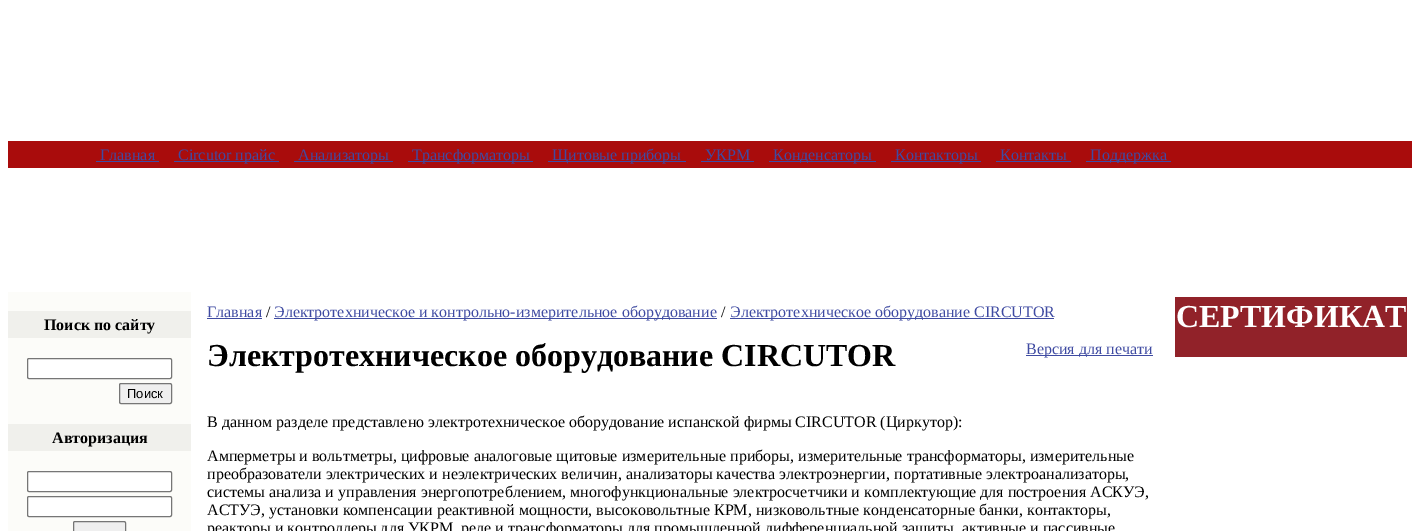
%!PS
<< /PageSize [1420 531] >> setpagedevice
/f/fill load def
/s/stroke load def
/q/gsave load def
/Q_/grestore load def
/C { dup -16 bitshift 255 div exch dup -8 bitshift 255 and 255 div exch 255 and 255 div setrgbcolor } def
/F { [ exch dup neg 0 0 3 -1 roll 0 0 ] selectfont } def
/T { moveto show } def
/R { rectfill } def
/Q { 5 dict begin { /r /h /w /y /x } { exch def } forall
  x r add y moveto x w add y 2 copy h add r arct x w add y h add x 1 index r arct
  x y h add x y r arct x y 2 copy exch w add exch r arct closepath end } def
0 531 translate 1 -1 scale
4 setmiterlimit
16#FFFFFF C
0 0 1420 531 R
16#A90C0C C
8 141 1404 27 R
/LiberationSerif-Regular 16 F
16#3F4BA2 C
(Главная) 100 160 T
96 161 63 1 R
174 161 105 1 R
(Circutor прайс) 178 160 T
294 161 99 1 R
(Анализаторы) 298 160 T
408 161 125 1 R
(Трансформаторы) 412 160 T
548 161 138 1 R
(Щитовые приборы) 552 160 T
(УКРМ) 705 160 T
701 161 53 1 R
769 161 107 1 R
(Конденсаторы) 773 160 T
891 161 90 1 R
(Контакторы) 895 160 T
(Контакты) 1000 160 T
996 161 75 1 R
1086 161 85 1 R
(Поддержка) 1090 160 T
(Главная) 207 317 T
207 318 55 1 R
16#000000 C
(/) 266 317 T
16#3F4BA2 C
274 318 443 1 R
(Электротехническое и контрольно-измерительное оборудование) 274 317 T
16#000000 C
(/) 721 317 T
16#3F4BA2 C
730 318 324 1 R
(Электротехническое оборудование CIRCUTOR) 730 317 T
/LiberationSerif-Bold 32 F
16#000000 C
(Электротехническое оборудование CIRCUTOR) 207 366 T
16#3F4BA2 C
1026 355 127 1 R
/LiberationSerif-Regular 16 F
(Версия для печати) 1026 354 T
16#000000 C
(В данном разделе представлено электротехническое оборудование испанской фирмы CIRCUTOR \(Циркутор\):) 207 427 T
(Амперметры и вольтметры, цифровые аналоговые щитовые измерительные приборы, измерительные трансформаторы, измерительные) 207 461 T
(преобразователи электрических и неэлектрических величин, анализаторы качества электроэнергии, портативные электроанализаторы,) 207 479 T
(системы анализа и управления энергопотреблением, многофункциональные электросчетчики и комплектующие для построения АСКУЭ,) 207 497 T
(АСТУЭ, установки компенсации реактивной мощности, высоковольтные КРМ, низковольтные конденсаторные банки, контакторы,) 207 515 T
(реакторы и контроллеры для УКРМ, реле и трансформаторы для промышленной дифференциальной защиты, активные и пассивные) 207 533 T
16#912229 C
1175 297 232 60 R
/LiberationSerif-Bold 32 F
16#FFFFFF C
(СЕРТИФИКАТ) 1176 327 T
16#FCFCF9 C
8 292 183 239 R
16#F0F0EC C
8 311 183 27 R
/LiberationSerif-Bold 16 F
16#000000 C
(Поиск по сайту) 44 330 T
16#FFFFFF C
27.5 358.5 144 20 1.5 Q q f Q_
16#767676 C
s
16#EFEFEF C
119.5 383.5 52 20 1.5 Q q f Q_
16#767676 C
s
/LiberationSans-Regular 13 F
16#000000 C
(Поиск) 127 398 T
16#F0F0EC C
8 424 183 27 R
/LiberationSerif-Bold 16 F
16#000000 C
(Авторизация) 52 443 T
16#FFFFFF C
27.5 471.5 144 20 1.5 Q q f Q_
16#767676 C
s
16#FFFFFF C
27.5 496.5 144 20 1.5 Q q f Q_
16#767676 C
s
16#EFEFEF C
73.5 521.5 52 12 1.5 Q q f Q_
16#767676 C
s
showpage
